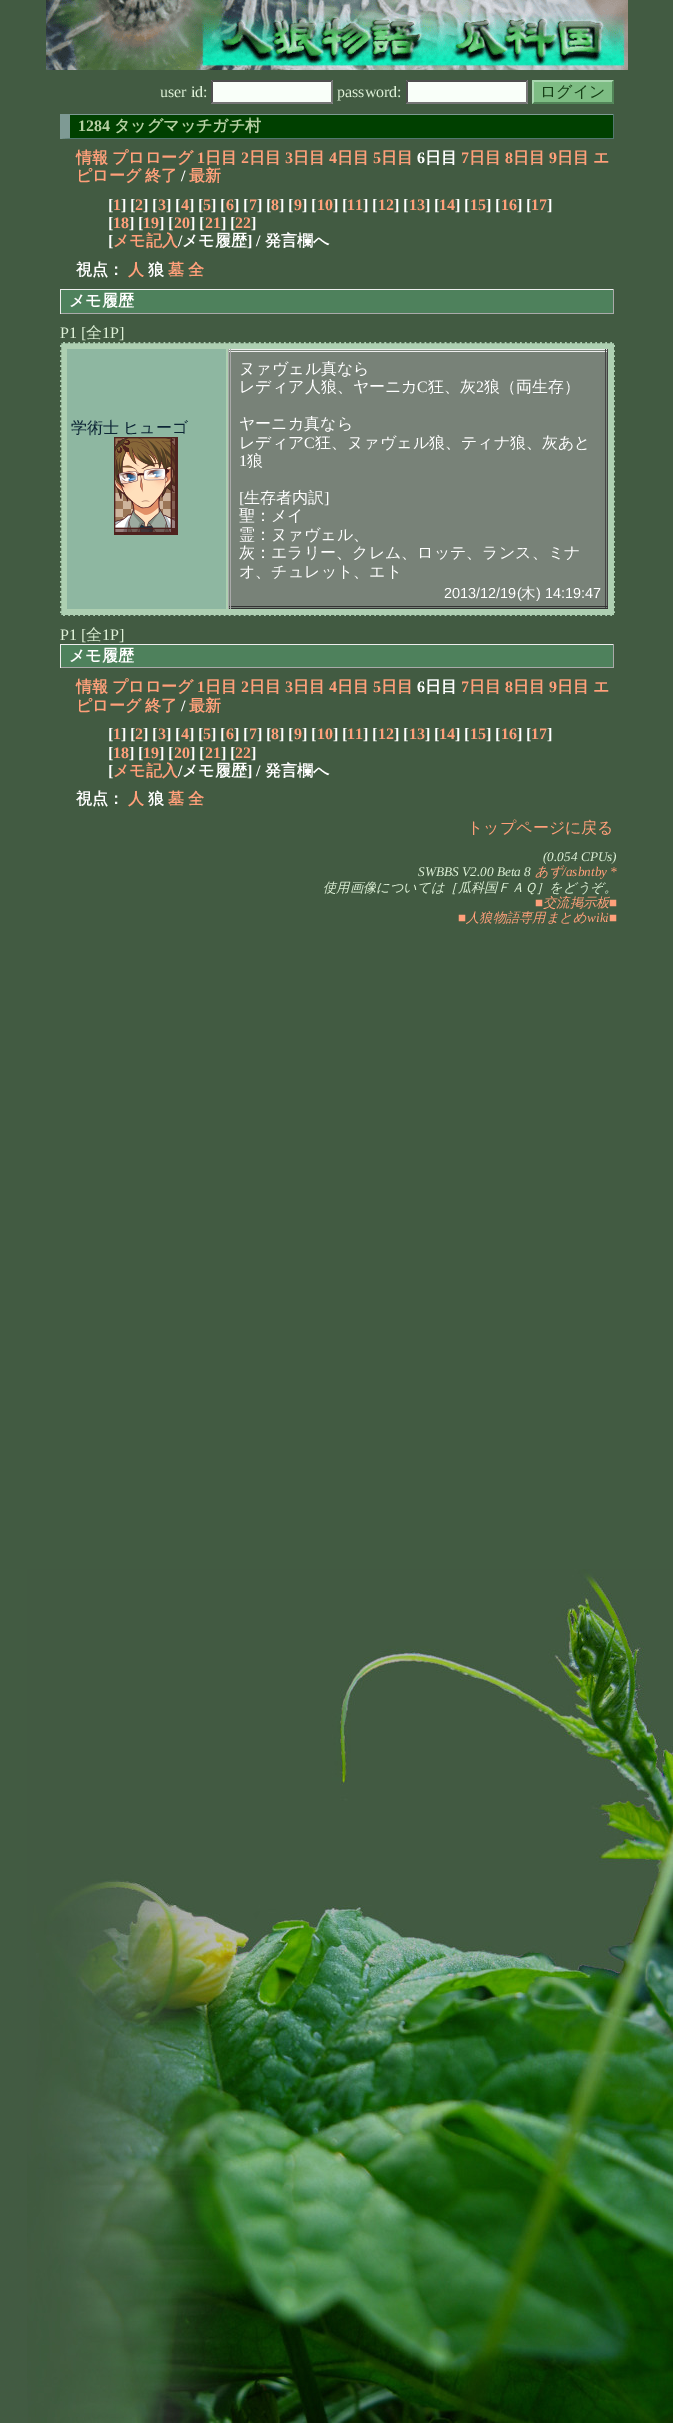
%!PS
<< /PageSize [673 2423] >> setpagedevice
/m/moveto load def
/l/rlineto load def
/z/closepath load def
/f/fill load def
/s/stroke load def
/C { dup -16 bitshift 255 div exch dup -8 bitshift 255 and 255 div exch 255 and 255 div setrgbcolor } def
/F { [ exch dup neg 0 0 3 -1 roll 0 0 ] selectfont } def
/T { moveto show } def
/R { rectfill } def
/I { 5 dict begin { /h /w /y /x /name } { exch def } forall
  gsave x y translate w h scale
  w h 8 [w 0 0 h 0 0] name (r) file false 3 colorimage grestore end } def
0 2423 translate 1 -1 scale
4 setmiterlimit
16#425B42 C
0 0 673 2423 R
(1.rgb) 27 1569 646 854 I
(2.rgb) 46 0 582 70 I
/LiberationSerif-Regular 16 F
16#DDF0D6 C
(user id:) 160 97 T
16#F9FFF9 C
211 80 122 24 R
16#4F4F4F C
211 80 m 122 0 l -2 2 l -118 0 l z f
16#767676 C
333 80 m 0 24 l -2 -2 l 0 -20 l z f
333 104 m -122 0 l 2 -2 l 118 0 l z f
16#4F4F4F C
211 104 m 0 -24 l 2 2 l 0 20 l z f
16#DDF0D6 C
(password:) 337 97 T
16#F9FFF9 C
406 80 122 24 R
16#4F4F4F C
406 80 m 122 0 l -2 2 l -118 0 l z f
16#767676 C
528 80 m 0 24 l -2 -2 l 0 -20 l z f
528 104 m -122 0 l 2 -2 l 118 0 l z f
16#4F4F4F C
406 104 m 0 -24 l 2 2 l 0 20 l z f
16#7EBD84 C
532 80 82 24 R
16#AAD6B0 C
532 80 m 82 0 l -2 2 l -78 0 l z f
16#528458 C
614 80 m 0 24 l -2 -2 l 0 -20 l z f
614 104 m -82 0 l 2 -2 l 78 0 l z f
16#AAD6B0 C
532 104 m 0 -24 l 2 2 l 0 20 l z f
/WenQuanYiZenHei-Medium 16 F
16#163F16 C
(ログイン) 540 97 T
16#004000 C
70 115 543 23 R
16#7E9A94 C
60 114 554 1 R
16#52786F C
613 114 1 25 R
614 139 m -554 0 l 10 -1 l 543 0 l z f
16#7E9A94 C
60 139 m 0 -25 l 10 1 l 0 23 l z f
/LiberationSerif-Bold 16 F
16#B6D0A3 C
(1284) 78 131 T
/WenQuanYiZenHei-Bold 16 F
(タッグマッチガチ村) 114 131 T
16#FFA07A C
(情報) 76 163 T
(プロローグ) 112 163 T
/LiberationSerif-Bold 16 F
(1) 197 163 T
/WenQuanYiZenHei-Bold 16 F
(日目) 205 163 T
/LiberationSerif-Bold 16 F
(2) 241 163 T
/WenQuanYiZenHei-Bold 16 F
(日目) 249 163 T
/LiberationSerif-Bold 16 F
(3) 285 163 T
/WenQuanYiZenHei-Bold 16 F
(日目) 293 163 T
/LiberationSerif-Bold 16 F
(4) 329 163 T
/WenQuanYiZenHei-Bold 16 F
(日目) 337 163 T
/LiberationSerif-Bold 16 F
(5) 373 163 T
/WenQuanYiZenHei-Bold 16 F
(日目) 381 163 T
/LiberationSerif-Bold 16 F
16#FFFFFF C
(6) 417 163 T
/WenQuanYiZenHei-Bold 16 F
(日目) 425 163 T
/LiberationSerif-Bold 16 F
16#FFA07A C
(7) 461 163 T
/WenQuanYiZenHei-Bold 16 F
(日目) 469 163 T
/LiberationSerif-Bold 16 F
(8) 505 163 T
/WenQuanYiZenHei-Bold 16 F
(日目) 513 163 T
/LiberationSerif-Bold 16 F
(9) 549 163 T
/WenQuanYiZenHei-Bold 16 F
(日目) 557 163 T
(エ) 593 163 T
(ピローグ) 76 181 T
(終了) 145 181 T
/LiberationSerif-Bold 16 F
16#FFFFFF C
(/) 181 181 T
/WenQuanYiZenHei-Bold 16 F
16#FFA07A C
(最新) 189 181 T
/LiberationSerif-Bold 16 F
16#FFFFFF C
([) 108 210 T
16#FFA07A C
(1) 113 210 T
16#FFFFFF C
(] [) 121 210 T
16#FFA07A C
(2) 135 210 T
16#FFFFFF C
(] [) 143 210 T
16#FFA07A C
(3) 158 210 T
16#FFFFFF C
(] [) 166 210 T
16#FFA07A C
(4) 181 210 T
16#FFFFFF C
(] [) 189 210 T
16#FFA07A C
(5) 203 210 T
16#FFFFFF C
(] [) 211 210 T
16#FFA07A C
(6) 226 210 T
16#FFFFFF C
(] [) 234 210 T
16#FFA07A C
(7) 249 210 T
16#FFFFFF C
(] [) 257 210 T
16#FFA07A C
(8) 271 210 T
16#FFFFFF C
(] [) 279 210 T
16#FFA07A C
(9) 294 210 T
16#FFFFFF C
(] [) 302 210 T
16#FFA07A C
(10) 317 210 T
16#FFFFFF C
(] [) 333 210 T
16#FFA07A C
(11) 347 210 T
16#FFFFFF C
(] [) 363 210 T
16#FFA07A C
(12) 378 210 T
16#FFFFFF C
(] [) 394 210 T
16#FFA07A C
(13) 409 210 T
16#FFFFFF C
(] [) 425 210 T
16#FFA07A C
(14) 439 210 T
16#FFFFFF C
(] [) 455 210 T
16#FFA07A C
(15) 470 210 T
16#FFFFFF C
(] [) 486 210 T
16#FFA07A C
(16) 501 210 T
16#FFFFFF C
(] [) 517 210 T
16#FFA07A C
(17) 531 210 T
16#FFFFFF C
(]) 547 210 T
([) 108 228 T
16#FFA07A C
(18) 113 228 T
16#FFFFFF C
(] [) 129 228 T
16#FFA07A C
(19) 143 228 T
16#FFFFFF C
(] [) 159 228 T
16#FFA07A C
(20) 174 228 T
16#FFFFFF C
(] [) 190 228 T
16#FFA07A C
(21) 205 228 T
16#FFFFFF C
(] [) 221 228 T
16#FFA07A C
(22) 235 228 T
16#FFFFFF C
(]) 251 228 T
([) 108 246 T
/WenQuanYiZenHei-Bold 16 F
16#FFA07A C
(メモ記入) 113 246 T
/LiberationSerif-Bold 16 F
16#FFFFFF C
(/) 178 246 T
/WenQuanYiZenHei-Bold 16 F
(メモ履歴) 182 246 T
/LiberationSerif-Bold 16 F
(] /) 247 246 T
/WenQuanYiZenHei-Bold 16 F
(発言欄へ) 265 246 T
(視点：) 76 275 T
16#FFA07A C
(人) 128 275 T
16#FFFFFF C
(狼) 148 275 T
16#FFA07A C
(墓) 168 275 T
(全) 188 275 T
16#4E815C C
61 290 552 23 R
16#EEEEEE C
60 289 554 1 R
16#AAAAAA C
613 289 1 25 R
60 313 554 1 R
16#EEEEEE C
60 289 1 25 R
16#FFFFFF C
(メモ履歴) 69 306 T
/LiberationSerif-Regular 16 F
16#DDF0D6 C
(P1 [) 60 338 T
/WenQuanYiZenHei-Medium 16 F
(全) 86 338 T
/LiberationSerif-Regular 16 F
(1P]) 102 338 T
16#ADCFB1 C
60 342 555 274 R
16#425B43 C
[3 2.02] 0 setdash
60 342.5 m 555 0 l s
614.5 342 m 0 274 l s
60 615.5 m 555 0 l s
60.5 342 m 0 274 l s
16#8EB7A1 C
67 349 159 260 R
/WenQuanYiZenHei-Medium 16 F
16#0C2535 C
71 433 m -1 0 32 (学術士 ヒューゴ) widthshow
(3.rgb) 114 437 64 98 I
16#788278 C
229 350 378 258 R
16#EEEEEE C
228 349 380 1 R
228 351 380 1 R
16#444444 C
605 349 1 260 R
607 349 1 260 R
16#333333 C
228 606 380 1 R
228 608 380 1 R
16#AAAAAA C
228 349 1 260 R
230 349 1 260 R
16#FFFFFF C
(ヌァヴェル真なら) 239 374 T
(レディア人狼、ヤーニカ) 239 392 T
/LiberationSerif-Regular 16 F
(C) 417 392 T
/WenQuanYiZenHei-Medium 16 F
(狂、灰) 428 392 T
/LiberationSerif-Regular 16 F
(2) 476 392 T
/WenQuanYiZenHei-Medium 16 F
(狼（両生存）) 484 392 T
(ヤーニカ真なら) 239 429 T
(レディア) 239 448 T
/LiberationSerif-Regular 16 F
(C) 304 448 T
/WenQuanYiZenHei-Medium 16 F
(狂、ヌァヴェル狼、ティナ狼、灰あと) 315 448 T
/LiberationSerif-Regular 16 F
(1) 239 466 T
/WenQuanYiZenHei-Medium 16 F
(狼) 247 466 T
/LiberationSerif-Regular 16 F
([) 239 503 T
/WenQuanYiZenHei-Medium 16 F
(生存者内訳) 244 503 T
/LiberationSerif-Regular 16 F
(]) 324 503 T
/WenQuanYiZenHei-Medium 16 F
(聖：メイ) 239 521 T
(霊：ヌァヴェル、) 239 540 T
(灰：エラリー、クレム、ロッテ、ランス、ミナ) 239 558 T
(オ、チュレット、エト) 239 577 T
/LiberationSans-Regular 14.5 F
(2013/12/19\() 444 598 T
/WenQuanYiZenHei-Medium 14.5 F
(木) 521 598 T
/LiberationSans-Regular 14.5 F
(\) 14:19:47) 536 598 T
/LiberationSerif-Regular 16 F
16#DDF0D6 C
(P1 [) 60 640 T
/WenQuanYiZenHei-Medium 16 F
(全) 86 640 T
/LiberationSerif-Regular 16 F
(1P]) 102 640 T
16#4E815C C
61 645 552 22 R
16#EEEEEE C
60 644 554 1 R
16#AAAAAA C
613 644 1 24 R
60 667 554 1 R
16#EEEEEE C
60 644 1 24 R
/WenQuanYiZenHei-Bold 16 F
16#FFFFFF C
(メモ履歴) 69 661 T
16#FFA07A C
(情報) 76 692 T
(プロローグ) 112 692 T
/LiberationSerif-Bold 16 F
(1) 197 692 T
/WenQuanYiZenHei-Bold 16 F
(日目) 205 692 T
/LiberationSerif-Bold 16 F
(2) 241 692 T
/WenQuanYiZenHei-Bold 16 F
(日目) 249 692 T
/LiberationSerif-Bold 16 F
(3) 285 692 T
/WenQuanYiZenHei-Bold 16 F
(日目) 293 692 T
/LiberationSerif-Bold 16 F
(4) 329 692 T
/WenQuanYiZenHei-Bold 16 F
(日目) 337 692 T
/LiberationSerif-Bold 16 F
(5) 373 692 T
/WenQuanYiZenHei-Bold 16 F
(日目) 381 692 T
/LiberationSerif-Bold 16 F
16#FFFFFF C
(6) 417 692 T
/WenQuanYiZenHei-Bold 16 F
(日目) 425 692 T
/LiberationSerif-Bold 16 F
16#FFA07A C
(7) 461 692 T
/WenQuanYiZenHei-Bold 16 F
(日目) 469 692 T
/LiberationSerif-Bold 16 F
(8) 505 692 T
/WenQuanYiZenHei-Bold 16 F
(日目) 513 692 T
/LiberationSerif-Bold 16 F
(9) 549 692 T
/WenQuanYiZenHei-Bold 16 F
(日目) 557 692 T
(エ) 593 692 T
(ピローグ) 76 711 T
(終了) 145 711 T
/LiberationSerif-Bold 16 F
16#FFFFFF C
(/) 181 711 T
/WenQuanYiZenHei-Bold 16 F
16#FFA07A C
(最新) 189 711 T
/LiberationSerif-Bold 16 F
16#FFFFFF C
([) 108 739 T
16#FFA07A C
(1) 113 739 T
16#FFFFFF C
(] [) 121 739 T
16#FFA07A C
(2) 135 739 T
16#FFFFFF C
(] [) 143 739 T
16#FFA07A C
(3) 158 739 T
16#FFFFFF C
(] [) 166 739 T
16#FFA07A C
(4) 181 739 T
16#FFFFFF C
(] [) 189 739 T
16#FFA07A C
(5) 203 739 T
16#FFFFFF C
(] [) 211 739 T
16#FFA07A C
(6) 226 739 T
16#FFFFFF C
(] [) 234 739 T
16#FFA07A C
(7) 249 739 T
16#FFFFFF C
(] [) 257 739 T
16#FFA07A C
(8) 271 739 T
16#FFFFFF C
(] [) 279 739 T
16#FFA07A C
(9) 294 739 T
16#FFFFFF C
(] [) 302 739 T
16#FFA07A C
(10) 317 739 T
16#FFFFFF C
(] [) 333 739 T
16#FFA07A C
(11) 347 739 T
16#FFFFFF C
(] [) 363 739 T
16#FFA07A C
(12) 378 739 T
16#FFFFFF C
(] [) 394 739 T
16#FFA07A C
(13) 409 739 T
16#FFFFFF C
(] [) 425 739 T
16#FFA07A C
(14) 439 739 T
16#FFFFFF C
(] [) 455 739 T
16#FFA07A C
(15) 470 739 T
16#FFFFFF C
(] [) 486 739 T
16#FFA07A C
(16) 501 739 T
16#FFFFFF C
(] [) 517 739 T
16#FFA07A C
(17) 531 739 T
16#FFFFFF C
(]) 547 739 T
([) 108 758 T
16#FFA07A C
(18) 113 758 T
16#FFFFFF C
(] [) 129 758 T
16#FFA07A C
(19) 143 758 T
16#FFFFFF C
(] [) 159 758 T
16#FFA07A C
(20) 174 758 T
16#FFFFFF C
(] [) 190 758 T
16#FFA07A C
(21) 205 758 T
16#FFFFFF C
(] [) 221 758 T
16#FFA07A C
(22) 235 758 T
16#FFFFFF C
(]) 251 758 T
([) 108 776 T
/WenQuanYiZenHei-Bold 16 F
16#FFA07A C
(メモ記入) 113 776 T
/LiberationSerif-Bold 16 F
16#FFFFFF C
(/) 178 776 T
/WenQuanYiZenHei-Bold 16 F
(メモ履歴) 182 776 T
/LiberationSerif-Bold 16 F
(] /) 247 776 T
/WenQuanYiZenHei-Bold 16 F
(発言欄へ) 265 776 T
(視点：) 76 804 T
16#FFA07A C
(人) 128 804 T
16#FFFFFF C
(狼) 148 804 T
16#FFA07A C
(墓) 168 804 T
(全) 188 804 T
/WenQuanYiZenHei-Medium 16 F
(トップページに戻る) 467 833 T
/LiberationSerif-Italic 13.3 F
16#DDF0D6 C
(\(0.054 CPUs\)) 543 861 T
(SWBBS V2.00 Beta 8) 418 876 T
/WenQuanYiZenHei-MediumItalic 13.3 F
16#FFA07A C
(あず) 535 876 T
/LiberationSerif-Italic 13.3 F
(/asbntby *) 562 876 T
/WenQuanYiZenHei-MediumItalic 13.3 F
16#DDF0D6 C
(使用画像については［瓜科国ＦＡＱ］をどうぞ。) 323 892 T
/LiberationSerif-Italic 13.3 F
16#FFA07A C
(■) 535 907 T
/WenQuanYiZenHei-MediumItalic 13.3 F
(交流掲示板) 543 907 T
/LiberationSerif-Italic 13.3 F
(■) 609 907 T
(■) 458 922 T
/WenQuanYiZenHei-MediumItalic 13.3 F
(人狼物語専用まとめ) 466 922 T
/LiberationSerif-Italic 13.3 F
(wiki■) 587 922 T
showpage
